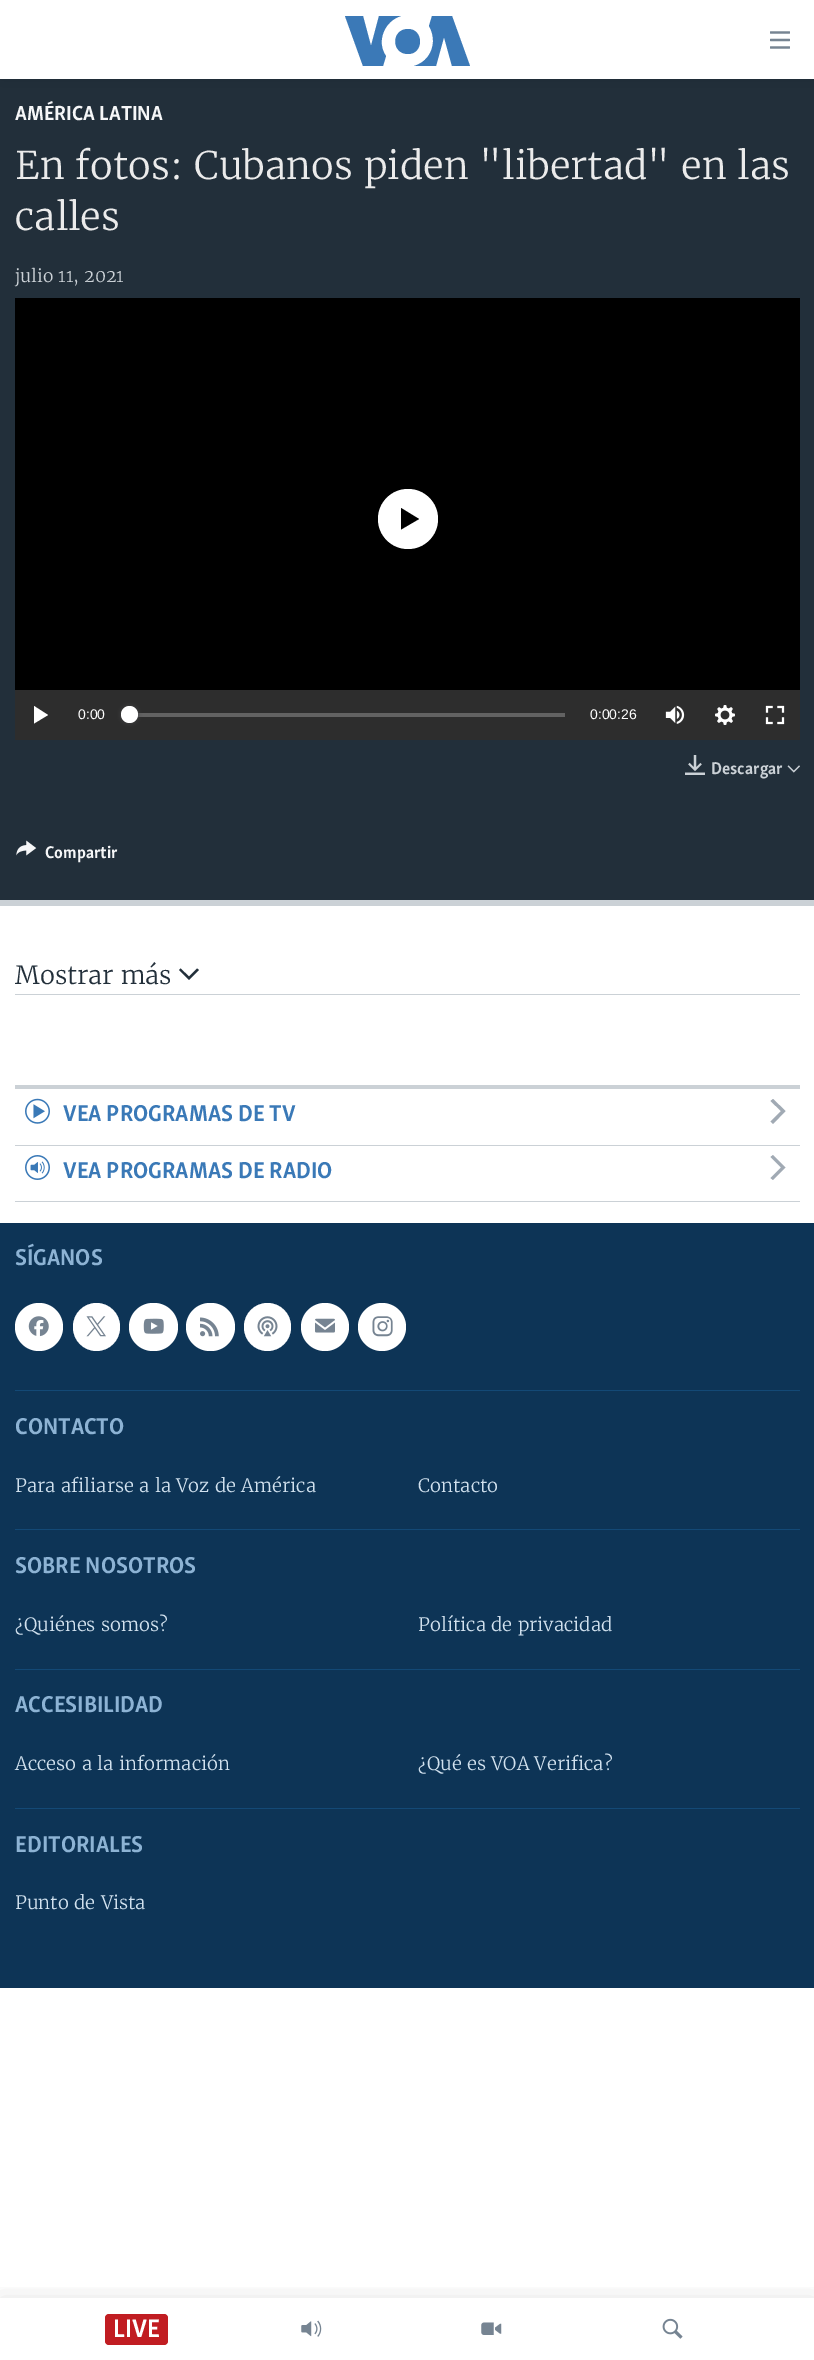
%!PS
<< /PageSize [814 2360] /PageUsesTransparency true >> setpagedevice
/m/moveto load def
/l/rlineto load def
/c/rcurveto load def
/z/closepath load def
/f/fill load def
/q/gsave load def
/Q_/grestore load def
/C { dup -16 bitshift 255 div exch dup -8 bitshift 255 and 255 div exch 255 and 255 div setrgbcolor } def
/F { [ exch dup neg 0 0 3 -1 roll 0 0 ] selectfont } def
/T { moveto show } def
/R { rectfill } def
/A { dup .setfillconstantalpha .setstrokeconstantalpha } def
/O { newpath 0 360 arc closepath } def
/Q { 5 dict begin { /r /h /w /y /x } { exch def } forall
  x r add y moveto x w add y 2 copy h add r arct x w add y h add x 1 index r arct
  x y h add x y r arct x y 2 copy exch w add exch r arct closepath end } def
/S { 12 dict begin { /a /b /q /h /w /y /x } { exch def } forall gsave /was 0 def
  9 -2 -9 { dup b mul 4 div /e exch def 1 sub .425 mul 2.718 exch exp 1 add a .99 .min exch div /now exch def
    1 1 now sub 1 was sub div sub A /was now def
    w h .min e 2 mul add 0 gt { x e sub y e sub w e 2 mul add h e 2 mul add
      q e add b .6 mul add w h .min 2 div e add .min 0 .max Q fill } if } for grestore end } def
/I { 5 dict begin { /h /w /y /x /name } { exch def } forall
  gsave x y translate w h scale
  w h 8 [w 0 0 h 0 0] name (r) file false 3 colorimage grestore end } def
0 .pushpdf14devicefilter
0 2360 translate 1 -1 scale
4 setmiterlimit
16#FFFFFF C
0 0 814 2360 R
16#222F3A C
0 79 814 821 R
16#CBD1D6 C
0 900 814 6 R
/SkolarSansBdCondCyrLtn-Bold 21 F
16#F6F7F8 C
(AMÉRICA LATINA) 15 120 T
/Merriweather-Light 38 F
16#EBEBEB C
(En fotos: Cubanos piden "libertad" en las) 15 179 T
(calles) 15 230 T
/Merriweather-Light 17.5 F
16#CBD1D6 C
(julio 11, 2021) 15 282 T
16#000000 C
15 298 785 392 R
16#FFFFFF C
408 519 30 O f
16#000000 C
401 529.5 m 18 -10.5 l -18 -11 l z f
16#2D2D2D C
15 690 785 50 R
16#FFFFFF C
34 723.5 m 14 -8.5 l -14 -9 l z f
/LiberationSans-Regular 14 F
(0:00) 78 719 T
16#626262 C
129 713 436 4 R
16#414144 C
121 706 17 17 8.5 2 1 S
16#FFFFFF C
129.5 714.5 8.5 O f
(0:00:26) 590 719 T
(1.rgb) 665 705 20 19 I
(2.rgb) 715 705 20 20 I
(3.rgb) 765 705 20 20 I
(4.rgb) 685 755 20 20 I
/SkolarSansBdCondCyrLtn-Bold 17.5 F
16#CBD1D6 C
(Descargar) 711 774 T
(5.rgb) 787 765 13 8 I
(6.rgb) 16 840 21 16 I
16#F6F7F8 C
(Compartir) 45 858 T
16#CBD1D6 C
15 994 785 1 R
/Merriweather-Light 25 F
16#222F3A C
(Mostrar más) 15 984 T
179 970 m 10 10 l 10 -10 l -2 -1.5 l -8 8 l -8.5 -8 l z f
16#CBD1D6 C
15 1085 785 4 R
15 1145 785 1 R
(7.rgb) 25 1098 25 26 I
/SkolarSansBdCondCyrLtn-Bold 23.6 F
16#3A79B7 C
(VEA PROGRAMAS DE TV) 63 1121 T
16#A1AAB4 C
773 1124 m 12.5 -13 l -12.5 -12 l -2.5 2 l 10.5 10 l -10.5 10.5 l z f
16#CBD1D6 C
15 1201 785 1 R
(8.rgb) 25 1155 25 25 I
16#3A79B7 C
(VEA PROGRAMAS DE RADIO) 63 1178 T
16#A1AAB4 C
773 1180 m 12.5 -12.5 l -12.5 -12.5 l -2.5 2 l 10.5 10.5 l -10.5 10.5 l z f
16#0D3456 C
0 1223 814 765 R
16#8DB3D4 C
(SÍGANOS) 15 1265 T
16#FFFFFF C
39 1327 24 O f
(9.rgb) 28 1316 21 21 I
73 1303 47 48 23.5 Q f
(10.rgb) 86 1316 20 21 I
129 1303 49 48 24 Q f
(11.rgb) 143 1318 21 16 I
186 1303 49 48 24 Q f
(12.rgb) 200 1317 19 20 I
244 1303 47 48 23.5 Q f
(13.rgb) 257 1316 21 21 I
325 1327 24 O f
(14.rgb) 315 1318 20 15 I
382 1327 24 O f
(15.rgb) 372 1316 21 21 I
16#134976 C
15 1390 785 1 R
16#8DB3D4 C
(CONTACTO) 15 1434 T
/Merriweather-Light 18.4 F
16#D1E1EE C
(Para afiliarse a la Voz de América) 15 1492 T
(Contacto) 418 1492 T
16#134976 C
15 1529 785 1 R
/SkolarSansBdCondCyrLtn-Bold 23.6 F
16#8DB3D4 C
(SOBRE NOSOTROS) 15 1573 T
/Merriweather-Light 18.4 F
16#D1E1EE C
(¿Quiénes somos?) 15 1631 T
(Política de privacidad) 418 1631 T
16#134976 C
15 1669 785 1 R
/SkolarSansBdCondCyrLtn-Bold 23.6 F
16#8DB3D4 C
(ACCESIBILIDAD) 15 1712 T
/Merriweather-Light 18.4 F
16#D1E1EE C
(Acceso a la información) 15 1770 T
(¿Qué es VOA Verifica?) 418 1770 T
16#134976 C
15 1808 785 1 R
/SkolarSansBdCondCyrLtn-Bold 23.6 F
16#8DB3D4 C
(EDITORIALES) 15 1852 T
/Merriweather-Light 18.4 F
16#D1E1EE C
(Punto de Vista) 15 1909 T
16#000000 C
0 0 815 79 0 12.5 .1 S
16#FFFFFF C
0 0 814 79 R
16#3B79B7 C
386 56 m -3 10 l -20 0 l -18 -50 l 18 0 l 8 30 l 8 -30 l 22 0 l -17 5 -25 26 -15 40 c z 408 29 m -17 0 -17 25 0 25 c 16 0 16 -25 0 -25 c z 433 41 m 0 12 -8 22 -19 25 c 22 0 l 8 -29 l 8 29 l 18 0 l -18 -50 l -20 0 l -3 10 l 3 5 4 10 4 15 c z f
(16.rgb) 770 31 20 18 I
q
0 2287 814 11 rectclip
16#000000 C
0 2298 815 62 0 12.5 .1 S
Q_
16#C11D22 C
105 2314 63 31 4 Q f
/SkolarSansBdCondCyrLtn-Bold 26 F
16#FFFFFF C
(LIVE) 113 2337 T
(17.rgb) 301 2320 21 17 I
(18.rgb) 481 2322 21 13 I
(19.rgb) 662 2318 21 21 I
.poppdf14devicefilter showpage
